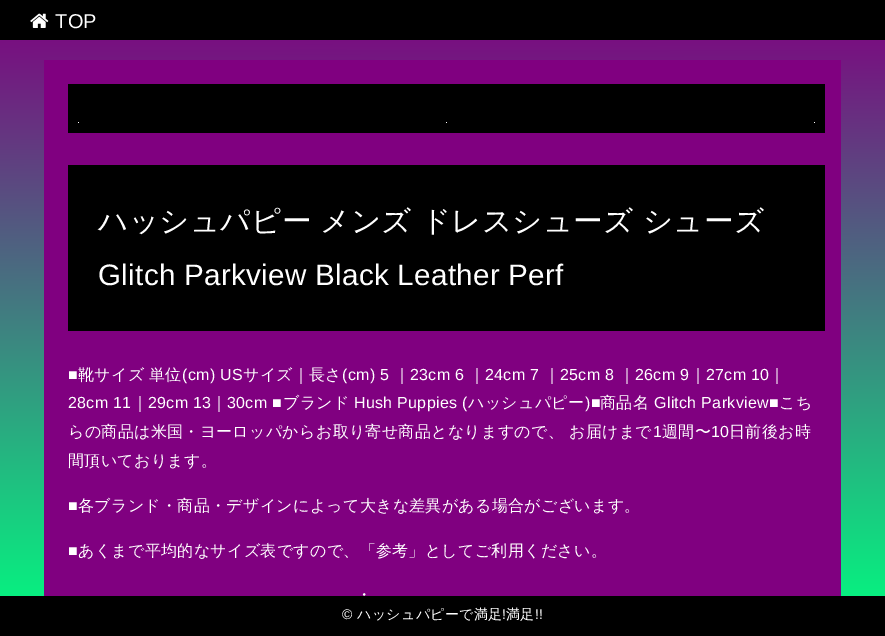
%!PS
<< /PageSize [885 636] >> setpagedevice
/m/moveto load def
/l/rlineto load def
/z/closepath load def
/q/gsave load def
/Q_/grestore load def
/C { dup -16 bitshift 255 div exch dup -8 bitshift 255 and 255 div exch 255 and 255 div setrgbcolor } def
/F { [ exch dup neg 0 0 3 -1 roll 0 0 ] selectfont } def
/R { rectfill } def
/I { 5 dict begin { /h /w /y /x /name } { exch def } forall
  gsave x y translate w h scale
  w h 8 [w 0 0 h 0 0] name (r) file false 3 colorimage grestore end } def
0 636 translate 1 -1 scale
4 setmiterlimit
16#FFFFFF C
0 0 885 636 R
16#000000 C
0 0 885 40 R
(1.rgb) 30 13 19 15 I
/LiberationSans-Regular 20 F
16#FFFFFF C
55 28 m .3 0 (TOP) ashow
q 0 40 m 885 0 l 0 556 l -885 0 l z clip newpath
<< /ShadingType 2 /ColorSpace /DeviceRGB /Coords [442 0 443 636] /Extend [true true] /Function << /FunctionType 2 /Domain [0 1] /C0 [.502 0 .502] /C1 [0 1 .502] /N 1 >> >> shfill Q_
16#800080 C
44 60 797 536 R
16#000000 C
68 84 757 49 R
16#FFFFFF C
78 122 1 1 R
446 122 1 1 R
814 122 1 1 R
16#000000 C
68 165 757 166 R
/WenQuanYiZenHei-Medium 29.6 F
16#FFFFFF C
98 231 m -.5 0 32 .3 0 (ハッシュパピー メンズ ドレスシューズ シューズ) awidthshow
/LiberationSans-Regular 29.6 F
98 285 m .3 0 (Glitch Parkview Black Leather Perf) ashow
/LiberationSans-Regular 16 F
68 380 m .3 0 (■) ashow
/WenQuanYiZenHei-Medium 16 F
78 380 m .3 0 (靴サイズ) ashow
149 380 m .3 0 (単位) ashow
/LiberationSans-Regular 16 F
182 380 m .3 0 (\(cm\) US) ashow
/WenQuanYiZenHei-Medium 16 F
243 380 m .3 0 (サイズ｜長さ) ashow
/LiberationSans-Regular 16 F
342 380 m .3 0 (\(cm\) 5) ashow
/WenQuanYiZenHei-Medium 16 F
394 380 m .3 0 (｜) ashow
/LiberationSans-Regular 16 F
410 380 m .3 0 (23cm 6) ashow
/WenQuanYiZenHei-Medium 16 F
469 380 m .3 0 (｜) ashow
/LiberationSans-Regular 16 F
485 380 m .3 0 (24cm 7) ashow
/WenQuanYiZenHei-Medium 16 F
544 380 m .3 0 (｜) ashow
/LiberationSans-Regular 16 F
560 380 m .3 0 (25cm 8) ashow
/WenQuanYiZenHei-Medium 16 F
619 380 m .3 0 (｜) ashow
/LiberationSans-Regular 16 F
635 380 m .3 0 (26cm 9) ashow
/WenQuanYiZenHei-Medium 16 F
690 380 m .3 0 (｜) ashow
/LiberationSans-Regular 16 F
706 380 m .3 0 (27cm 10) ashow
/WenQuanYiZenHei-Medium 16 F
769 380 m .3 0 (｜) ashow
/LiberationSans-Regular 16 F
68 408 m .3 0 (28cm 11) ashow
/WenQuanYiZenHei-Medium 16 F
132 408 m .3 0 (｜) ashow
/LiberationSans-Regular 16 F
148 408 m .3 0 (29cm 13) ashow
/WenQuanYiZenHei-Medium 16 F
211 408 m .3 0 (｜) ashow
/LiberationSans-Regular 16 F
227 408 m .3 0 (30cm ■) ashow
/WenQuanYiZenHei-Medium 16 F
283 408 m .3 0 (ブランド) ashow
/LiberationSans-Regular 16 F
354 408 m .3 0 (Hush Puppies \() ashow
/WenQuanYiZenHei-Medium 16 F
468 408 m .3 0 (ハッシュパピー) ashow
/LiberationSans-Regular 16 F
585 408 m .3 0 (\)■) ashow
/WenQuanYiZenHei-Medium 16 F
600 408 m .3 0 (商品名) ashow
/LiberationSans-Regular 16 F
654 408 m .3 0 (Glitch Parkview■) ashow
/WenQuanYiZenHei-Medium 16 F
779 408 m .3 0 (こち) ashow
68 437 m .3 0 (らの商品は米国・ヨーロッパからお取り寄せ商品となりますので、 お届けまで) ashow
/LiberationSans-Regular 16 F
653 437 m .3 0 (1) ashow
/WenQuanYiZenHei-Medium 16 F
662 437 m .3 0 (週間〜) ashow
/LiberationSans-Regular 16 F
711 437 m .3 0 (10) ashow
/WenQuanYiZenHei-Medium 16 F
729 437 m .3 0 (日前後お時) ashow
68 466 m .3 0 (間頂いております。) ashow
/LiberationSans-Regular 16 F
68 511 m .3 0 (■) ashow
/WenQuanYiZenHei-Medium 16 F
78 511 m .3 0 (各ブランド・商品・デザインによって大きな差異がある場合がございます。) ashow
/LiberationSans-Regular 16 F
68 556 m .3 0 (■) ashow
/WenQuanYiZenHei-Medium 16 F
78 556 m .3 0 (あくまで平均的なサイズ表ですので、「参考」としてご利用ください。) ashow
356 600 m .3 0 (・) ashow
16#000000 C
0 596 885 40 R
/LiberationSans-Regular 14 F
16#FFFFFF C
342 619 m .3 0 (©) ashow
/WenQuanYiZenHei-Medium 14 F
357 619 m .3 0 (ハッシュパピーで満足) ashow
/LiberationSans-Regular 14 F
502 619 m .3 0 (!) ashow
/WenQuanYiZenHei-Medium 14 F
506 619 m .3 0 (満足) ashow
/LiberationSans-Regular 14 F
535 619 m .3 0 (!!) ashow
showpage
